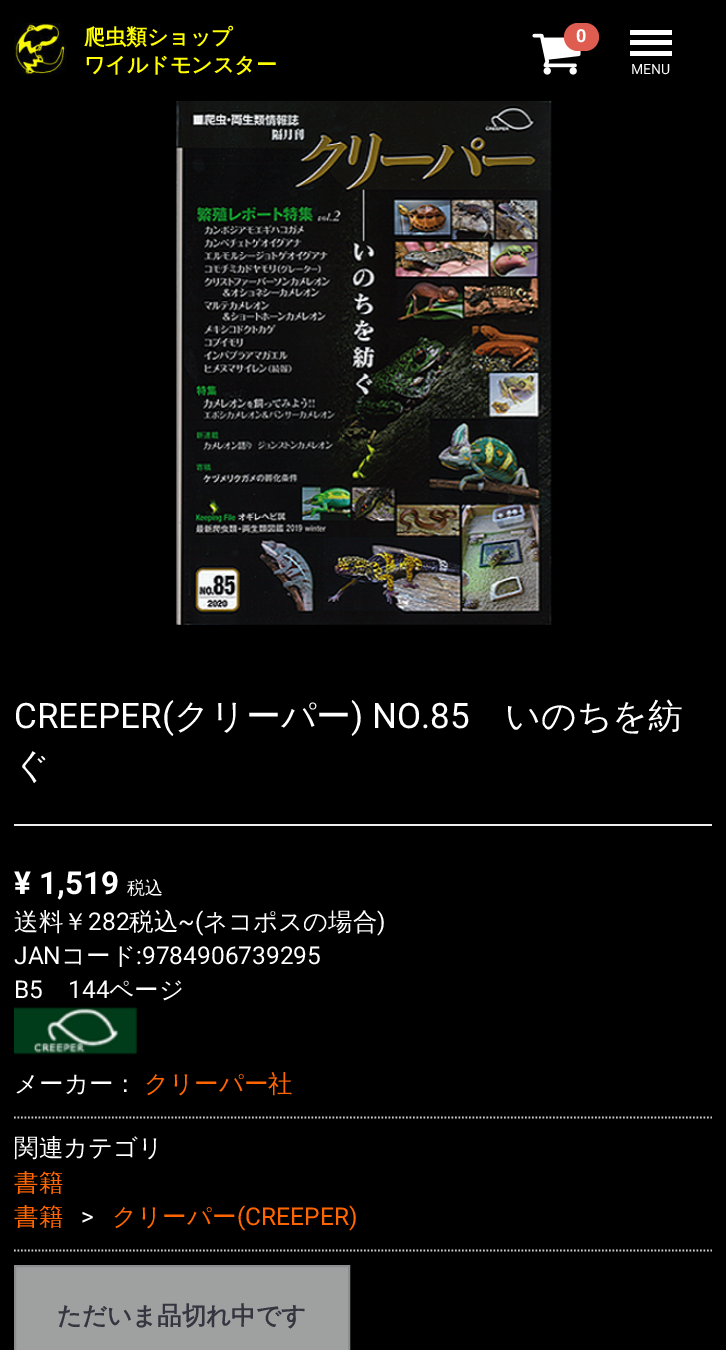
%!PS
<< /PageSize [726 1350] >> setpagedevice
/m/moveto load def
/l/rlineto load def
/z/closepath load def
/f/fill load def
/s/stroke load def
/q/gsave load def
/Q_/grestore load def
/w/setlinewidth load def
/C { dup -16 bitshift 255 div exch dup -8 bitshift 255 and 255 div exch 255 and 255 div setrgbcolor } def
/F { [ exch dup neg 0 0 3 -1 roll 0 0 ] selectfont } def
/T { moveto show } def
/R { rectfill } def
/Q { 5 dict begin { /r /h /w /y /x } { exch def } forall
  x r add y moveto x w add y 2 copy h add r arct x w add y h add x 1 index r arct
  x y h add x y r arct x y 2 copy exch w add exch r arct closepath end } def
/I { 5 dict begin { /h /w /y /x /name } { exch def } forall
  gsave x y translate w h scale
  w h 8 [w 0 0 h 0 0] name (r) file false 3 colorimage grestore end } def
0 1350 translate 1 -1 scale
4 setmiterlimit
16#000000 C
0 0 726 1350 R
(1.rgb) 14 22 53 54 I
/WenQuanYiZenHei-Bold 21 F
16#FFFF00 C
(爬虫類ショップ) 84 44 T
(ワイルドモンスター) 84 72 T
(2.rgb) 532 33 49 42 I
16#DE5D50 C
564 23 35 28 14 Q f
/Roboto-Bold 18 F
16#FFFFFF C
(0) 576 42 T
630 40 42 5 R
630 30 42 5 R
630 51 42 5 R
/Roboto-Regular 14 F
(MENU) 631 74 T
(3.rgb) 176 101 376 524 I
/Roboto-Regular 35 F
(CREEPER\() 14 728 T
/WenQuanYiZenHei-Medium 35 F
(クリーパー) 174 728 T
/Roboto-Regular 35 F
(\) NO.85) 351 728 T
/WenQuanYiZenHei-Medium 35 F
(いのちを紡) 505 728 T
(ぐ) 14 777 T
16#EEEEEE C
14 824 698 2 R
/Roboto-Bold 31.5 F
16#FFFFFF C
(¥ 1,519) 14 894 T
/WenQuanYiZenHei-Medium 18 F
(税込) 127 894 T
/WenQuanYiZenHei-Medium 24.5 F
(送料￥) 14 930 T
/Roboto-Regular 24.5 F
(282) 88 930 T
/WenQuanYiZenHei-Medium 24.5 F
(税込) 129 930 T
/Roboto-Regular 24.5 F
(~\() 178 930 T
/WenQuanYiZenHei-Medium 24.5 F
(ネコポスの場合) 203 930 T
/Roboto-Regular 24.5 F
(\)) 377 930 T
(JAN) 14 964 T
/WenQuanYiZenHei-Medium 24.5 F
(コード) 61 964 T
/Roboto-Regular 24.5 F
(:9784906739295) 136 964 T
(B5) 14 998 T
(144) 68 998 T
/WenQuanYiZenHei-Medium 24.5 F
(ページ) 109 998 T
(4.rgb) 14 1007 123 48 I
(メーカー：) 14 1092 T
16#FF6600 C
(クリーパー社) 144 1092 T
16#CCCCCC C
1.8 w
[1.75 1.75] 0 setdash
14 1117.5 m 698 0 l s
14 1250.5 m 698 0 l s
16#FFFFFF C
(関連カテゴリ) 14 1156 T
16#FF6600 C
(書籍) 14 1191 T
(書籍) 14 1225 T
/Roboto-Regular 24.5 F
16#FFFFFF C
(>) 81 1225 T
/WenQuanYiZenHei-Medium 24.5 F
16#FF6600 C
(クリーパー) 112 1225 T
/Roboto-Regular 24.5 F
(\(CREEPER\)) 237 1225 T
16#9FA1A1 C
15 1266 m 334 0 l 0 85 l -334 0 l z q f Q_
16#8C8E90 C
2 w
[] 0 setdash
s
/WenQuanYiZenHei-Bold 24.5 F
16#353540 C
(ただいま品切れ中です) 57 1324 T
showpage
